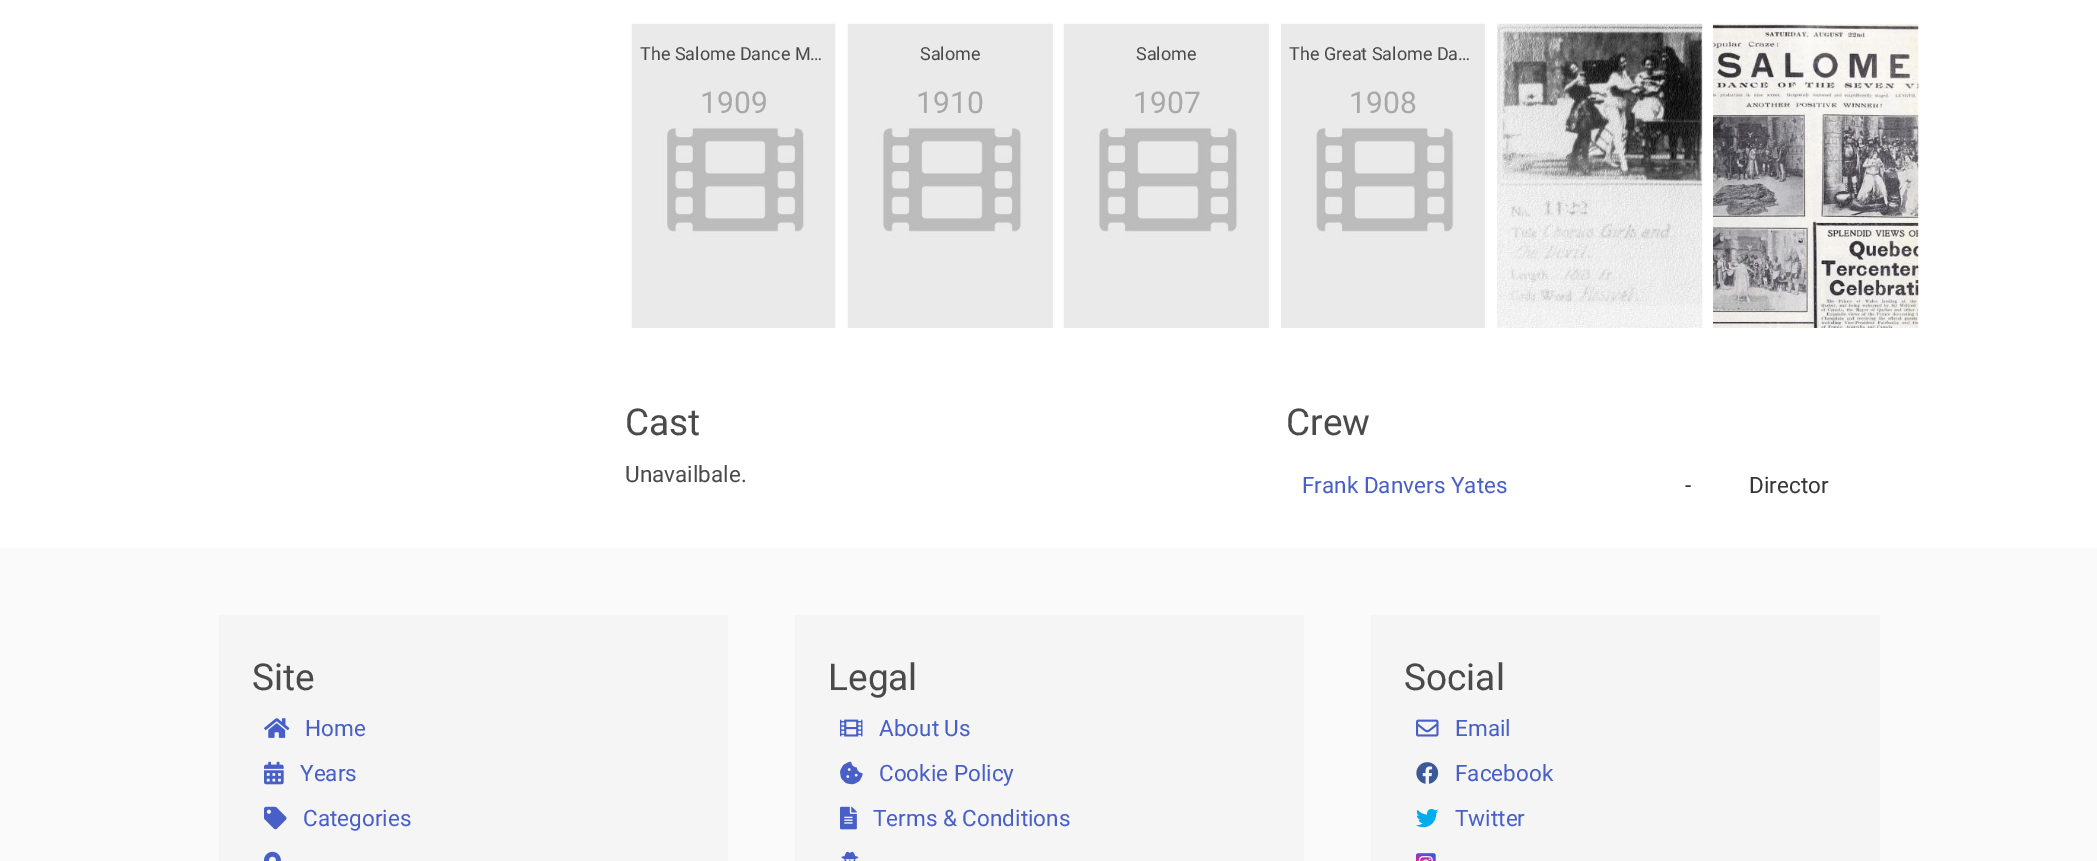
%!PS
<< /PageSize [2097 861] >> setpagedevice
/C { dup -16 bitshift 255 div exch dup -8 bitshift 255 and 255 div exch 255 and 255 div setrgbcolor } def
/F { [ exch dup neg 0 0 3 -1 roll 0 0 ] selectfont } def
/T { moveto show } def
/R { rectfill } def
/I { 5 dict begin { /h /w /y /x /name } { exch def } forall
  gsave x y translate w h scale
  w h 8 [w 0 0 h 0 0] name (r) file false 3 colorimage grestore end } def
0 861 translate 1 -1 scale
4 setmiterlimit
16#FFFFFF C
0 0 2097 861 R
(1.rgb) 631 23 205 305 I
/Roboto-Regular 18 F
16#4A4A4A C
(The Salome Dance M…) 640 60 T
/Roboto-Regular 30 F
16#A8A8A8 C
(1909) 700 113 T
(2.rgb) 847 23 206 305 I
/Roboto-Regular 18 F
16#4A4A4A C
(Salome) 920 60 T
/Roboto-Regular 30 F
16#A8A8A8 C
(1910) 916 113 T
(2.rgb) 1063 23 206 305 I
/Roboto-Regular 18 F
16#4A4A4A C
(Salome) 1136 60 T
/Roboto-Regular 30 F
16#A8A8A8 C
(1907) 1133 113 T
(3.rgb) 1281 23 204 305 I
/Roboto-Regular 18 F
16#4A4A4A C
(The Great Salome Da…) 1289 60 T
/Roboto-Regular 30 F
16#A8A8A8 C
(1908) 1349 113 T
(4.rgb) 1497 23 206 305 I
(5.rgb) 1713 23 206 305 I
/Roboto-Regular 37 F
16#4A4A4A C
(Cast) 625 435 T
/Roboto-Regular 22.5 F
(Unavailbale.) 625 482 T
/Roboto-Regular 37 F
(Crew) 1286 435 T
/Roboto-Regular 22.5 F
16#485FC7 C
(Frank Danvers Yates) 1302 493 T
16#363636 C
(-) 1685 493 T
(Director) 1749 493 T
16#FAFAFA C
0 548 2097 313 R
16#F5F5F5 C
219 615 509 246 R
/Roboto-Regular 37 F
16#4A4A4A C
(Site) 252 690 T
(6.rgb) 264 718 26 20 I
/Roboto-Regular 22.5 F
16#485FC7 C
(Home) 305 736 T
(7.rgb) 264 761 20 24 I
(Years) 300 781 T
(8.rgb) 264 806 23 24 I
(Categories) 303 826 T
(9.rgb) 264 851 17 10 I
16#F5F5F5 C
795 615 509 246 R
/Roboto-Regular 37 F
16#4A4A4A C
(Legal) 828 690 T
(10.rgb) 840 719 23 18 I
/Roboto-Regular 22.5 F
16#485FC7 C
(About Us) 879 736 T
(11.rgb) 840 761 23 24 I
(Cookie Policy) 879 781 T
(12.rgb) 840 806 17 24 I
(Terms & Conditions) 873 826 T
(13.rgb) 841 851 18 10 I
16#F5F5F5 C
1371 615 509 246 R
/Roboto-Regular 37 F
16#4A4A4A C
(Social) 1404 690 T
(14.rgb) 1416 719 23 18 I
/Roboto-Regular 22.5 F
16#485FC7 C
(Email) 1455 736 T
(15.rgb) 1416 762 23 22 I
(Facebook) 1455 781 T
(16.rgb) 1416 808 23 20 I
(Twitter) 1455 826 T
(17.rgb) 1416 853 20 8 I
showpage
